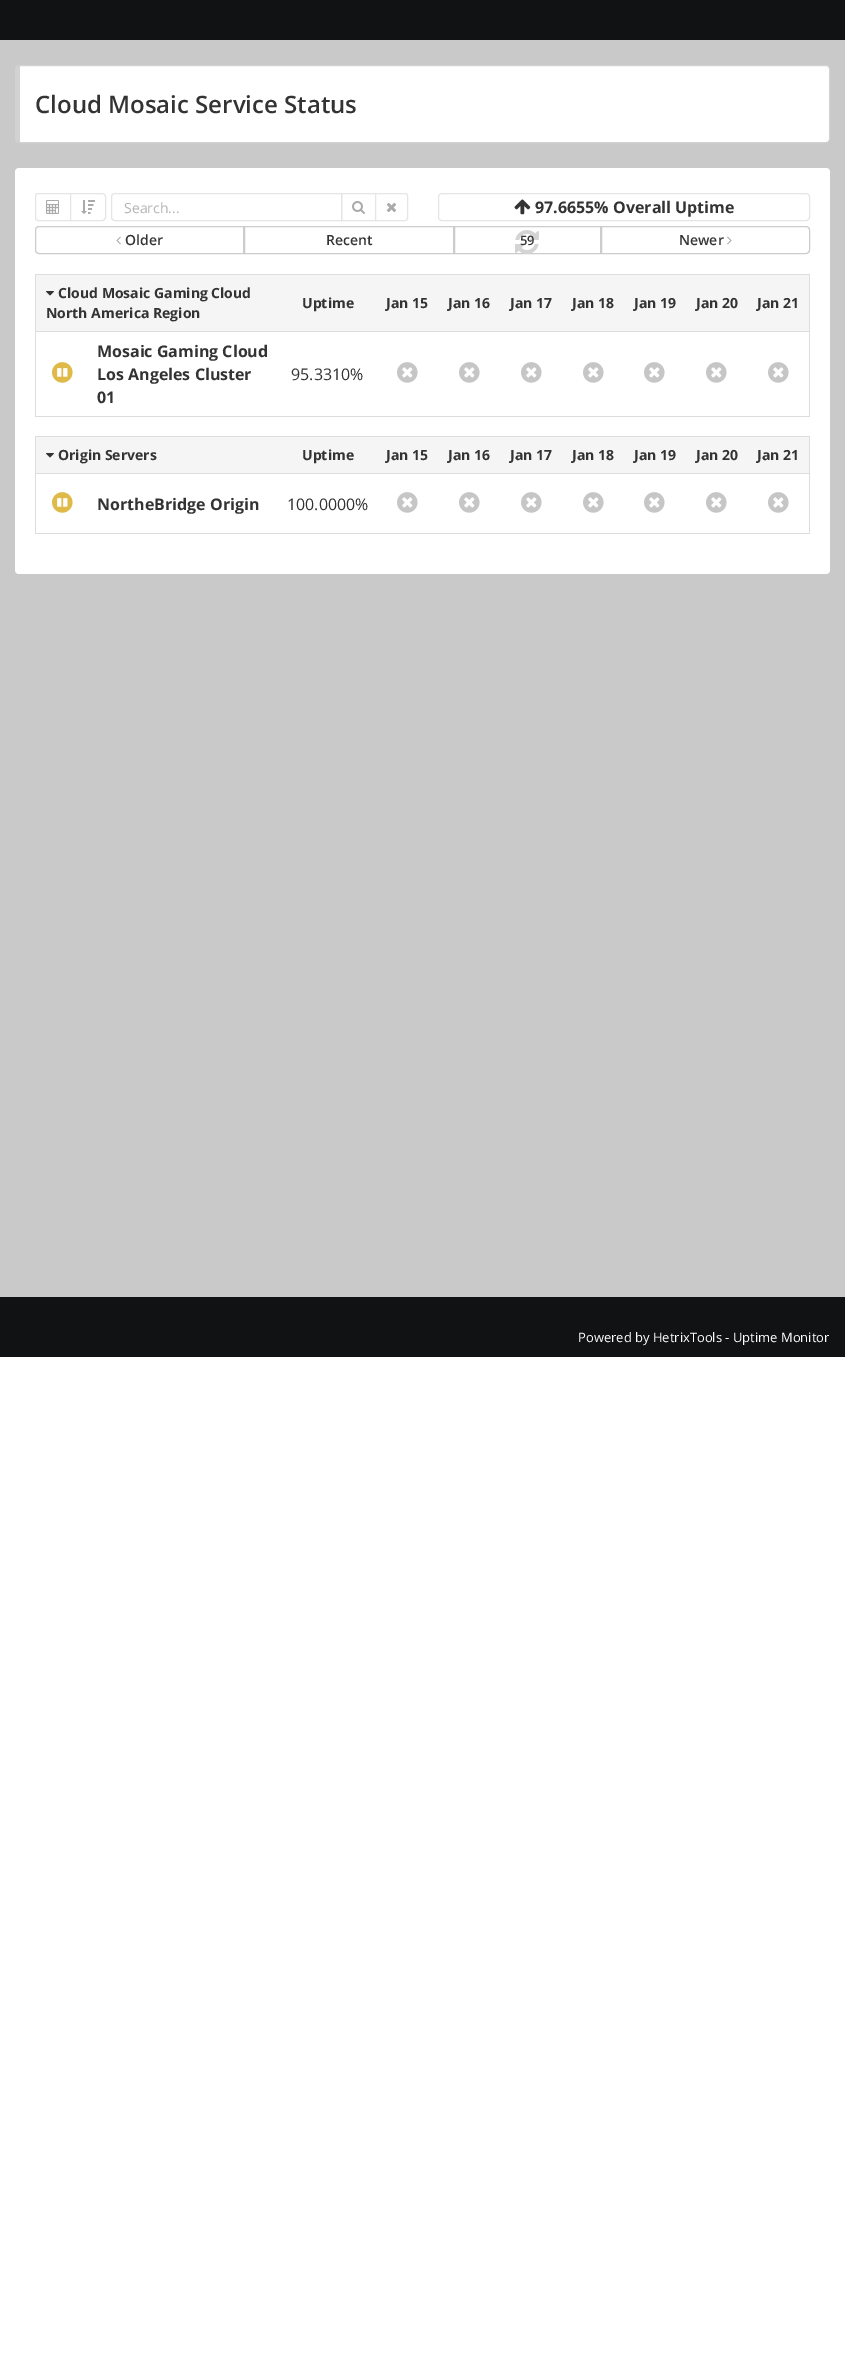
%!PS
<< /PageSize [845 2374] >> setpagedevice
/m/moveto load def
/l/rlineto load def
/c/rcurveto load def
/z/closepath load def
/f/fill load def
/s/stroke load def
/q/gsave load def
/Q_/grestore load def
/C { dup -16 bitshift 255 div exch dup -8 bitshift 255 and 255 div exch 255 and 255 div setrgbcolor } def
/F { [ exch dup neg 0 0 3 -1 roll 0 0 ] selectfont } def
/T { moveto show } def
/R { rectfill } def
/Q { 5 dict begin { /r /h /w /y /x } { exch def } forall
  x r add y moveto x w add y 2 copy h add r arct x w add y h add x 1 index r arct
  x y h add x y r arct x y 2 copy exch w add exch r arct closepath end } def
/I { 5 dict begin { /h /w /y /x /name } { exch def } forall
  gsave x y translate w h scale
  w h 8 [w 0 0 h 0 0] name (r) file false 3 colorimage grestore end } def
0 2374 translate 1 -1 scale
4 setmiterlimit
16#FFFFFF C
0 0 845 2374 R
16#101214 C
0 0 845 40 R
16#C9C9C9 C
0 40 845 1257 R
16#FFFFFF C
20 66 m 806 0 l 2 0 3 1 3 3 c 0 70 l 0 2 -1 3 -3 3 c -806 0 l z f
16#D2D2D2 C
15.5 65.5 814 77 3.5 Q s
16 67 4 74 R
/OpenSans-SemiBold 24 F
16#333333 C
(Cloud Mosaic Service Status) 35 113 T
16#FFFFFF C
15 168 815 406 4 Q f
16#E5E5E5 C
38 193.5 m 32.5 0 l 0 27 l -32.5 0 l -1.5 0 -2.5 -1 -2.5 -2.5 c 0 -22 l 0 -1.5 1 -2.5 2.5 -2.5 c z s
(1.rgb) 46 200 13 14 I
16#FFFFFF C
70.5 193.5 m 31.5 0 l 2 0 3.5 1.5 3.5 3.5 c 0 20 l 0 2 -1.5 3.5 -3.5 3.5 c -31.5 0 l z q f Q_
16#E5E5E5 C
s
(2.rgb) 81 200 14 14 I
341.5 193.5 34 27 rectstroke
16#FFFFFF C
115 193.5 m 226.5 0 l 0 27 l -226.5 0 l -2 0 -3.5 -1.5 -3.5 -3.5 c 0 -20 l 0 -2 1.5 -3.5 3.5 -3.5 c z q f Q_
16#E5E5E5 C
s
/OpenSans-Regular 14 F
16#B3B3B3 C
(Search...) 124 213 T
(3.rgb) 352 201 13 13 I
16#FFFFFF C
375.5 193.5 m 29.5 0 l 1.5 0 2.5 1 2.5 2.5 c 0 22 l 0 1.5 -1 2.5 -2.5 2.5 c -29.5 0 l z q f Q_
16#E5E5E5 C
s
(4.rgb) 387 203 9 9 I
438.5 193.5 371 27 3.5 Q s
(5.rgb) 514 199 17 16 I
/OpenSans-Bold 16 F
16#333333 C
(97.6655% Overall Uptime) 535 213 T
16#CCCCCC C
39 226.5 m 204.5 0 l 0 27 l -204.5 0 l -2 0 -3.5 -1.5 -3.5 -3.5 c 0 -20 l 0 -2 1.5 -3.5 3.5 -3.5 c z s
(6.rgb) 116 236 5 9 I
/OpenSans-SemiBold 14 F
16#333333 C
(Older) 125 245 T
16#CCCCCC C
244.5 226.5 209 27 rectstroke
16#333333 C
(Recent) 326 245 T
16#CCCCCC C
454.5 226.5 146 27 rectstroke
(7.rgb) 515 230 24 24 I
/OpenSans-SemiBold 13 F
16#333333 C
(59) 520 245 T
16#CCCCCC C
601.5 226.5 m 204.5 0 l 2 0 3.5 1.5 3.5 3.5 c 0 20 l 0 2 -1.5 3.5 -3.5 3.5 c -204.5 0 l z s
/OpenSans-SemiBold 14 F
16#333333 C
(Newer) 679 245 T
(8.rgb) 727 236 5 9 I
16#DDDDDD C
35 274 775 1 R
35 331 775 1 R
809 331 1 86 R
809 274 1 58 R
35 416 775 1 R
35 331 1 86 R
35 274 1 58 R
16#F5F5F5 C
36 275 773 56 R
(9.rgb) 46 291 8 5 I
/OpenSans-Bold 14 F
16#333333 C
(Cloud Mosaic Gaming Cloud) 58 298 T
(North America Region) 46 318 T
(Uptime) 302 308 T
(Jan 15) 386 308 T
(Jan 16) 448 308 T
(Jan 17) 510 308 T
(Jan 18) 572 308 T
(Jan 19) 634 308 T
(Jan 20) 696 308 T
(Jan 21) 757 308 T
(10.rgb) 52 362 21 21 I
/OpenSans-Bold 16 F
(Mosaic Gaming Cloud) 97 357 T
(Los Angeles Cluster) 97 380 T
(01) 97 403 T
/OpenSans-Regular 16 F
(95.3310%) 291 380 T
(11.rgb) 397 362 21 21 I
(11.rgb) 459 362 21 21 I
(11.rgb) 521 362 21 21 I
(11.rgb) 583 362 21 21 I
(11.rgb) 644 362 21 21 I
(11.rgb) 706 362 21 21 I
(11.rgb) 768 362 21 21 I
16#DDDDDD C
35 436 775 1 R
35 473 775 1 R
809 473 1 61 R
809 436 1 38 R
35 533 775 1 R
35 473 1 61 R
35 436 1 38 R
16#F5F5F5 C
36 437 773 36 R
(9.rgb) 46 453 8 5 I
/OpenSans-Bold 14 F
16#333333 C
(Origin Servers) 58 460 T
(Uptime) 302 460 T
(Jan 15) 386 460 T
(Jan 16) 448 460 T
(Jan 17) 510 460 T
(Jan 18) 572 460 T
(Jan 19) 634 460 T
(Jan 20) 696 460 T
(Jan 21) 757 460 T
(10.rgb) 52 492 21 21 I
/OpenSans-Bold 16 F
(NortheBridge Origin) 97 510 T
/OpenSans-Regular 16 F
(100.0000%) 287 510 T
(11.rgb) 397 492 21 21 I
(11.rgb) 459 492 21 21 I
(11.rgb) 521 492 21 21 I
(11.rgb) 583 492 21 21 I
(11.rgb) 644 492 21 21 I
(11.rgb) 706 492 21 21 I
(11.rgb) 768 492 21 21 I
16#101214 C
0 1297 845 60 R
/OpenSans-Regular 13 F
16#FFFFFF C
(Powered by HetrixTools - Uptime Monitor) 578 1342 T
showpage
